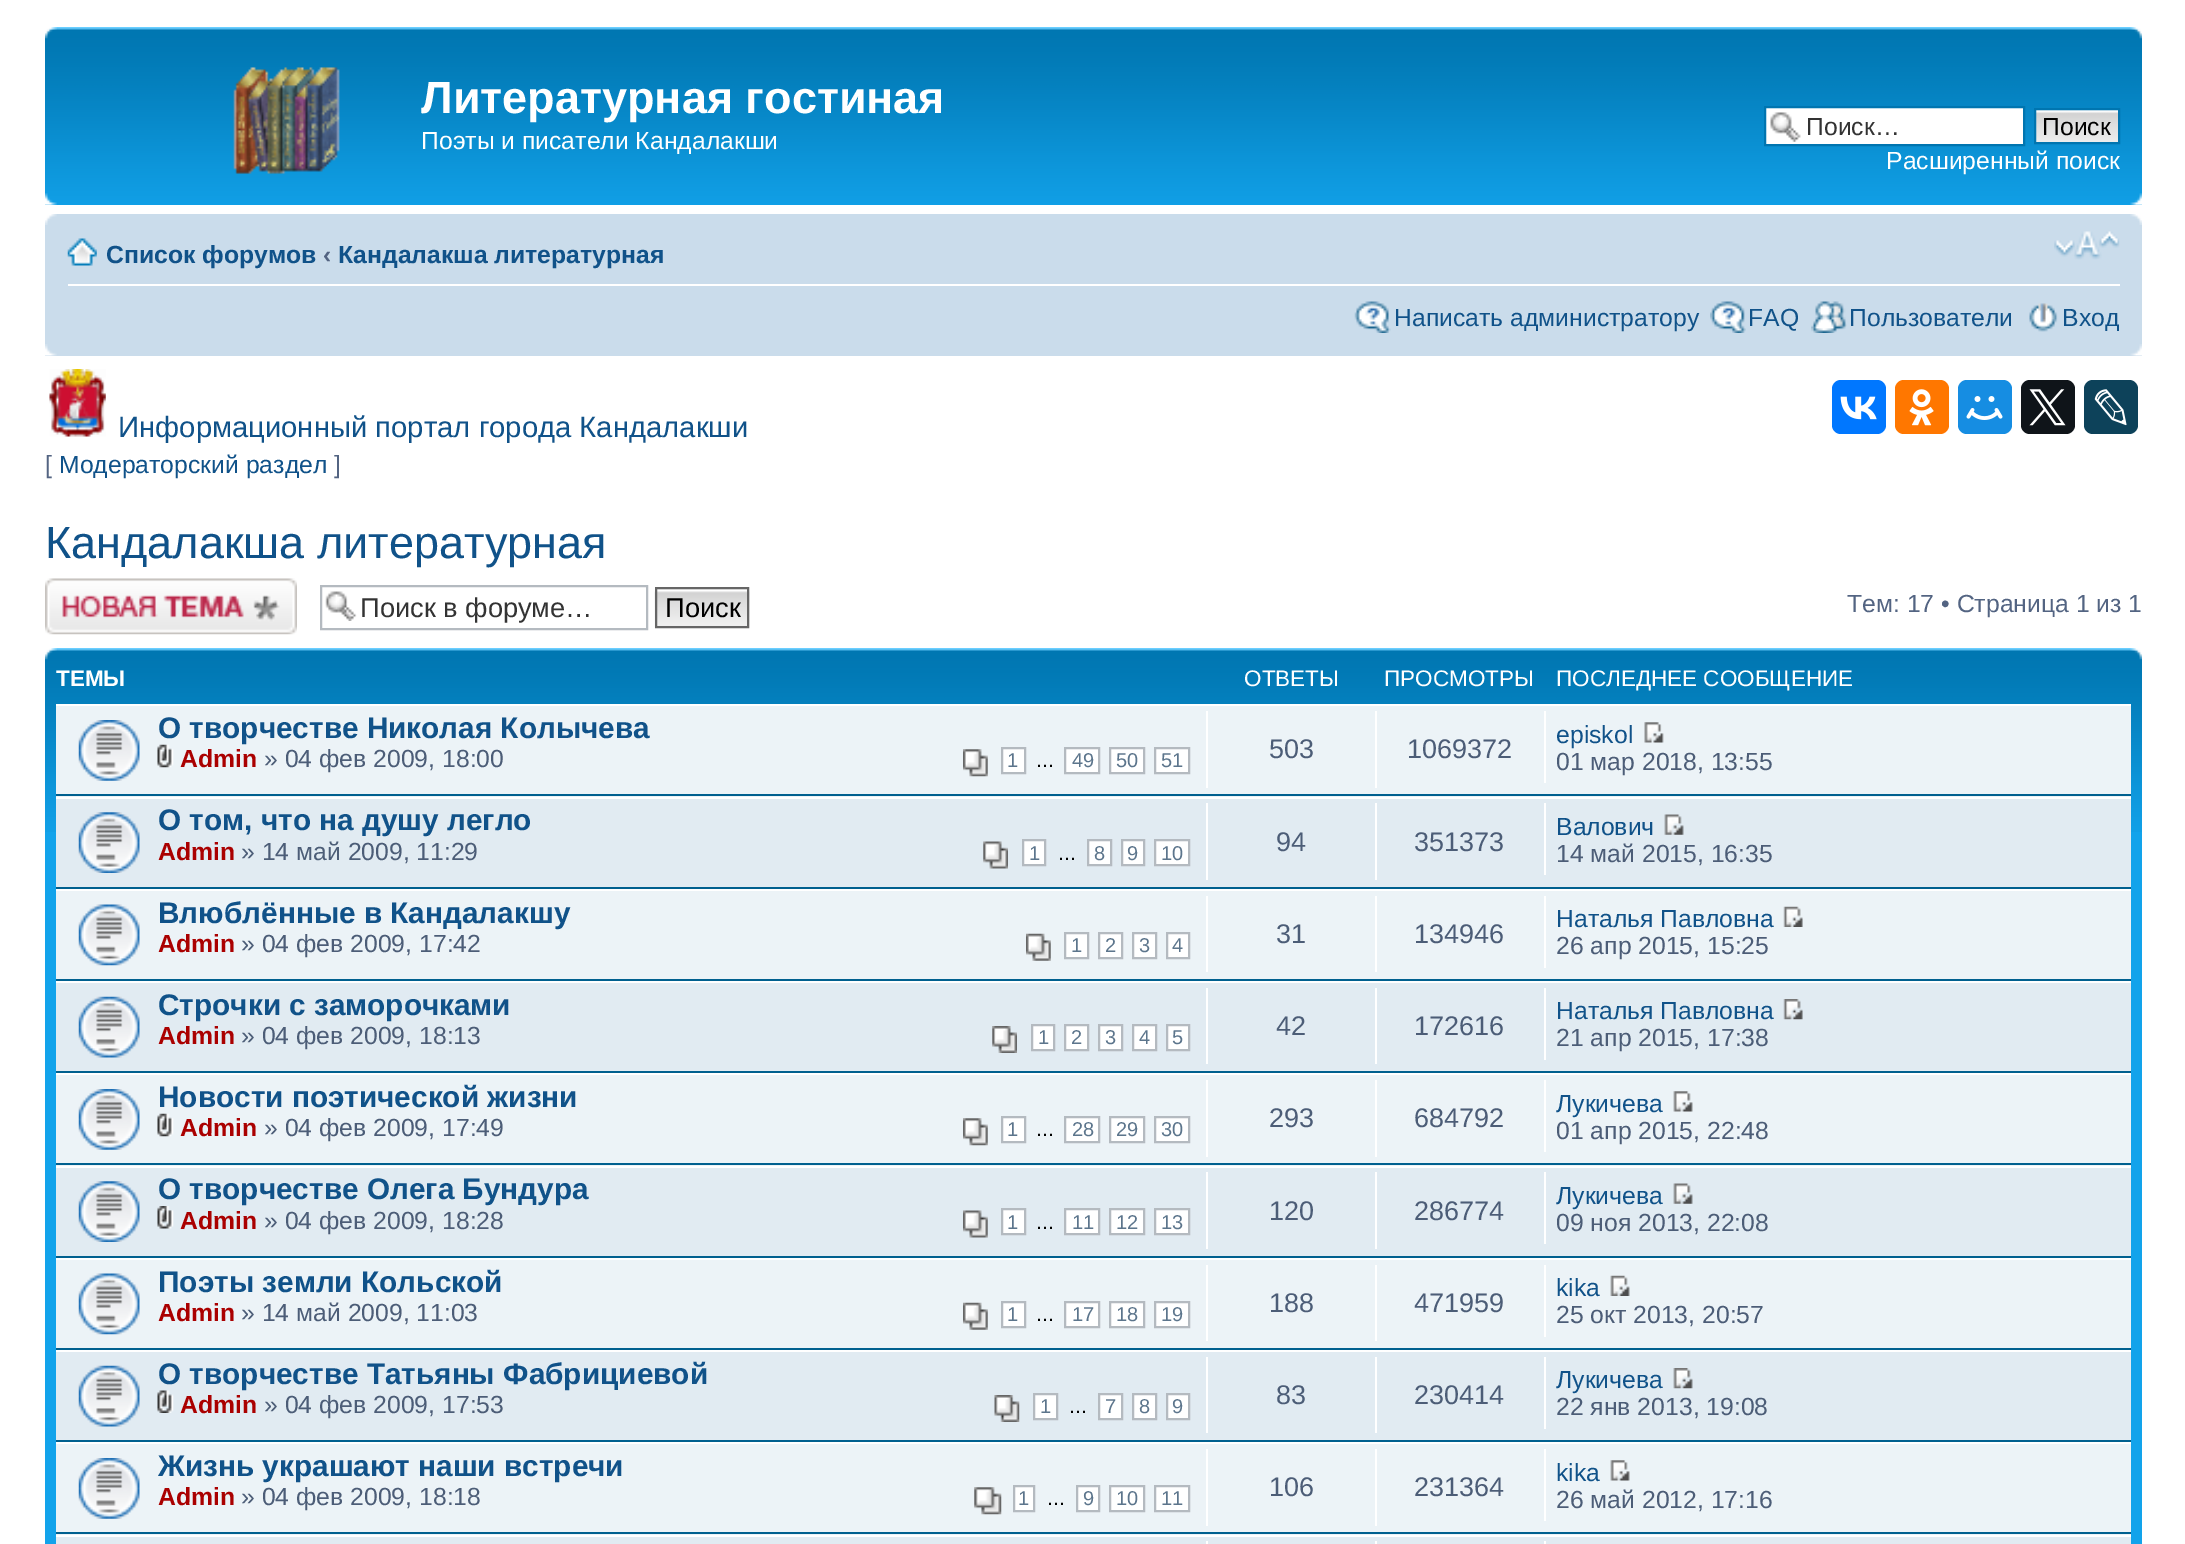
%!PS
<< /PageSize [2185 1544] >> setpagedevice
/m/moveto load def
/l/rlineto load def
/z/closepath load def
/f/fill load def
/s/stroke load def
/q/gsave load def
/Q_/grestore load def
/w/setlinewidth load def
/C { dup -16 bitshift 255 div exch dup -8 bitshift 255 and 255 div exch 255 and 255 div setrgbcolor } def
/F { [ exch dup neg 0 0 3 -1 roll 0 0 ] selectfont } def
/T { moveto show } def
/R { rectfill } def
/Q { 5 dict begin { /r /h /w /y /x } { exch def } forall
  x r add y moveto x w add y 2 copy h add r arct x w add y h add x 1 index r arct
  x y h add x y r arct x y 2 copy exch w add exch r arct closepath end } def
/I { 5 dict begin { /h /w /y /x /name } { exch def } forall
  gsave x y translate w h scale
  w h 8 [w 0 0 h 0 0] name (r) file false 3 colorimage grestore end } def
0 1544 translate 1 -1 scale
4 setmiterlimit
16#FFFFFF C
0 0 2185 1544 R
(1.rgb) 45 27 2097 178 I
(2.rgb) 45 27 12 12 I
(3.rgb) 2130 27 12 12 I
(4.rgb) 233 67 107 107 I
/LiberationSans-Bold 45 F
(Литературная гостиная) 421 113 T
/LiberationSans-Regular 24.75 F
(Поэты и писатели Кандалакши) 421 149 T
1766 108 257 36 R
(5.rgb) 1770 112 31 30 I
16#0075B0 C
2 w
1765 107 259 38 rectstroke
16#333333 C
(Поиск…) 1806 135 T
16#FAFAFA C
2036 110 82 2 R
(6.rgb) 2036 112 82 30 I
16#0075B0 C
2035 109 84 34 rectstroke
16#000000 C
(Поиск) 2042 135 T
16#FFFFFF C
(Расширенный поиск) 1886 169 T
(7.rgb) 45 193 12 12 I
(8.rgb) 2130 193 12 12 I
16#CADCEB C
45 214 2097 142 R
(9.rgb) 45 214 12 11 I
(10.rgb) 2130 214 12 11 I
16#FFFFFF C
68 284 2052 2 R
(11.rgb) 67 238 30 28 I
/LiberationSans-Bold 24.75 F
16#105289 C
(Список форумов) 106 263 T
16#536482 C
(‹) 323 263 T
16#105289 C
(Кандалакша литературная) 338 263 T
(12.rgb) 2054 231 66 29 I
(13.rgb) 1354 301 37 32 I
/LiberationSans-Regular 24.75 F
(Написать администратору) 1394 326 T
(14.rgb) 1710 301 36 32 I
(FAQ) 1748 326 T
(15.rgb) 1811 301 36 32 I
(Пользователи) 1849 326 T
(16.rgb) 2029 303 29 29 I
(Вход) 2062 326 T
(17.rgb) 45 344 12 12 I
(18.rgb) 2130 344 12 12 I
(19.rgb) 49 369 57 68 I
/LiberationSans-Regular 29.25 F
(Информационный портал города Кандалакши) 118 437 T
16#0077FF C
1832 380 54 54 9 Q f
(20.rgb) 1840 396 37 24 I
16#FF7700 C
1895 380 54 54 9 Q f
(21.rgb) 1909 389 25 37 I
16#168DE2 C
1958 380 54 54 9 Q f
(22.rgb) 1966 396 37 24 I
16#0F1419 C
2021 380 54 54 9 Q f
(23.rgb) 2029 389 37 37 I
16#0D425A C
2084 380 54 54 9 Q f
(24.rgb) 2094 389 33 37 I
/LiberationSans-Regular 24.75 F
16#536482 C
([) 45 473 T
16#105289 C
(Модераторский раздел) 59 473 T
16#536482 C
(]) 334 473 T
/LiberationSans-Regular 45 F
16#105289 C
(Кандалакша литературная) 45 558 T
(25.rgb) 45 578 252 57 I
(26.rgb) 325 591 32 30 I
16#B4BAC0 C
321 586 326 43 rectstroke
/LiberationSans-Regular 27.25 F
16#333333 C
(Поиск в форуме…) 360 617 T
16#FAFAFA C
657 589 90 1 R
(27.rgb) 654 590 96 38 I
16#666666 C
656 588 92 39 rectstroke
16#000000 C
(Поиск) 665 617 T
/LiberationSans-Regular 24.75 F
16#536482 C
(Тем: 17 • Страница 1 из 1) 1847 612 T
16#12A3EB C
45 832 2097 712 R
(28.rgb) 45 648 2097 184 I
(2.rgb) 45 648 12 12 I
(3.rgb) 2130 648 12 12 I
/LiberationSans-Bold 22.5 F
16#FFFFFF C
(ТЕМЫ) 56 686 T
/LiberationSans-Regular 22.5 F
(ОТВЕТЫ) 1244 686 T
(ПРОСМОТРЫ) 1384 686 T
(ПОСЛЕДНЕЕ СООБЩЕНИЕ) 1556 686 T
16#ECF3F7 C
56 706 2075 91 R
16#FFFFFF C
56 704 2075 2 R
16#00608F C
56 794 2075 2 R
(29.rgb) 78 720 62 61 I
/LiberationSans-Bold 29.75 F
16#105289 C
(О творчестве Николая Колычева) 158 738 T
(30.rgb) 157 744 17 24 I
/LiberationSans-Bold 24.75 F
16#AA0000 C
(Admin) 180 767 T
/LiberationSans-Regular 24.75 F
16#4C5D77 C
(» 04 фев 2009, 18:00) 264 767 T
(31.rgb) 963 749 25 28 I
16#FFFFFF C
1002 748 m 23 0 l 0 25 l -23 0 l z q f Q_
16#B4BAC0 C
s
/LiberationSans-Regular 20 F
16#5C758C C
(1) 1007 767 T
/LiberationSans-Regular 22 F
16#000000 C
(...) 1036 767 T
16#FFFFFF C
1065 748 m 34 0 l 0 25 l -34 0 l z q f Q_
16#B4BAC0 C
s
/LiberationSans-Regular 20 F
16#5C758C C
(49) 1072 767 T
16#FFFFFF C
1110 748 m 34 0 l 0 25 l -34 0 l z q f Q_
16#B4BAC0 C
s
16#5C758C C
(50) 1116 767 T
16#FFFFFF C
1155 748 m 34 0 l 0 25 l -34 0 l z q f Q_
16#B4BAC0 C
s
16#5C758C C
(51) 1161 767 T
16#FFFFFF C
1206 711 2 77 R
/LiberationSans-Regular 27 F
16#4C5D77 C
(503) 1269 758 T
16#FFFFFF C
1375 711 2 77 R
16#4C5D77 C
(1069372) 1407 758 T
16#FFFFFF C
1544 711 2 72 R
/LiberationSans-Regular 24.75 F
16#105289 C
(episkol) 1556 743 T
(32.rgb) 1644 722 20 21 I
16#4C5D77 C
(01 мар 2018, 13:55) 1556 770 T
16#E1EBF2 C
56 799 2075 88 R
16#FFFFFF C
56 797 2075 2 R
16#00608F C
56 887 2075 2 R
(33.rgb) 78 812 62 61 I
/LiberationSans-Bold 29.75 F
16#105289 C
(О том, что на душу легло) 158 830 T
/LiberationSans-Bold 24.75 F
16#AA0000 C
(Admin) 158 860 T
/LiberationSans-Regular 24.75 F
16#4C5D77 C
(» 14 май 2009, 11:29) 241 860 T
(34.rgb) 983 841 25 28 I
16#FFFFFF C
1023 840 m 22 0 l 0 25 l -22 0 l z q f Q_
16#B4BAC0 C
s
/LiberationSans-Regular 20 F
16#5C758C C
(1) 1029 860 T
/LiberationSans-Regular 22 F
16#000000 C
(...) 1058 860 T
16#FFFFFF C
1088 840 m 23 0 l 0 25 l -23 0 l z q f Q_
16#B4BAC0 C
s
/LiberationSans-Regular 20 F
16#5C758C C
(8) 1094 860 T
16#FFFFFF C
1122 840 m 22 0 l 0 25 l -22 0 l z q f Q_
16#B4BAC0 C
s
16#5C758C C
(9) 1127 860 T
16#FFFFFF C
1155 840 m 34 0 l 0 25 l -34 0 l z q f Q_
16#B4BAC0 C
s
16#5C758C C
(10) 1161 860 T
16#FFFFFF C
1206 803 2 77 R
/LiberationSans-Regular 27 F
16#4C5D77 C
(94) 1276 851 T
16#FFFFFF C
1375 803 2 77 R
16#4C5D77 C
(351373) 1414 851 T
16#FFFFFF C
1544 803 2 72 R
/LiberationSans-Regular 24.75 F
16#105289 C
(Валович) 1556 835 T
(35.rgb) 1664 814 20 21 I
16#4C5D77 C
(14 май 2015, 16:35) 1556 862 T
16#ECF3F7 C
56 891 2075 88 R
16#FFFFFF C
56 889 2075 2 R
16#00608F C
56 979 2075 2 R
(36.rgb) 78 904 62 62 I
/LiberationSans-Bold 29.75 F
16#105289 C
(Влюблённые в Кандалакшу) 158 923 T
/LiberationSans-Bold 24.75 F
16#AA0000 C
(Admin) 158 952 T
/LiberationSans-Regular 24.75 F
16#4C5D77 C
(» 04 фев 2009, 17:42) 241 952 T
(37.rgb) 1026 933 25 28 I
16#FFFFFF C
1065 933 m 23 0 l 0 25 l -23 0 l z q f Q_
16#B4BAC0 C
s
/LiberationSans-Regular 20 F
16#5C758C C
(1) 1071 952 T
16#FFFFFF C
1099 933 m 23 0 l 0 25 l -23 0 l z q f Q_
16#B4BAC0 C
s
16#5C758C C
(2) 1105 952 T
16#FFFFFF C
1133 933 m 23 0 l 0 25 l -23 0 l z q f Q_
16#B4BAC0 C
s
16#5C758C C
(3) 1139 952 T
16#FFFFFF C
1167 933 m 22 0 l 0 25 l -22 0 l z q f Q_
16#B4BAC0 C
s
16#5C758C C
(4) 1172 952 T
16#FFFFFF C
1206 896 2 76 R
/LiberationSans-Regular 27 F
16#4C5D77 C
(31) 1276 943 T
16#FFFFFF C
1375 896 2 76 R
16#4C5D77 C
(134946) 1414 943 T
16#FFFFFF C
1544 896 2 72 R
/LiberationSans-Regular 24.75 F
16#105289 C
(Наталья Павловна) 1556 927 T
(38.rgb) 1783 906 20 21 I
16#4C5D77 C
(26 апр 2015, 15:25) 1556 954 T
16#E1EBF2 C
56 983 2075 88 R
16#FFFFFF C
56 981 2075 2 R
16#00608F C
56 1071 2075 2 R
(39.rgb) 78 996 62 62 I
/LiberationSans-Bold 29.75 F
16#105289 C
(Строчки с заморочками) 158 1015 T
/LiberationSans-Bold 24.75 F
16#AA0000 C
(Admin) 158 1044 T
/LiberationSans-Regular 24.75 F
16#4C5D77 C
(» 04 фев 2009, 18:13) 241 1044 T
(40.rgb) 992 1026 25 27 I
16#FFFFFF C
1032 1025 m 22 0 l 0 25 l -22 0 l z q f Q_
16#B4BAC0 C
s
/LiberationSans-Regular 20 F
16#5C758C C
(1) 1038 1044 T
16#FFFFFF C
1065 1025 m 23 0 l 0 25 l -23 0 l z q f Q_
16#B4BAC0 C
s
16#5C758C C
(2) 1071 1044 T
16#FFFFFF C
1099 1025 m 23 0 l 0 25 l -23 0 l z q f Q_
16#B4BAC0 C
s
16#5C758C C
(3) 1105 1044 T
16#FFFFFF C
1133 1025 m 23 0 l 0 25 l -23 0 l z q f Q_
16#B4BAC0 C
s
16#5C758C C
(4) 1139 1044 T
16#FFFFFF C
1167 1025 m 22 0 l 0 25 l -22 0 l z q f Q_
16#B4BAC0 C
s
16#5C758C C
(5) 1172 1044 T
16#FFFFFF C
1206 988 2 76 R
/LiberationSans-Regular 27 F
16#4C5D77 C
(42) 1276 1035 T
16#FFFFFF C
1375 988 2 76 R
16#4C5D77 C
(172616) 1414 1035 T
16#FFFFFF C
1544 988 2 72 R
/LiberationSans-Regular 24.75 F
16#105289 C
(Наталья Павловна) 1556 1019 T
(41.rgb) 1783 999 20 21 I
16#4C5D77 C
(21 апр 2015, 17:38) 1556 1046 T
16#ECF3F7 C
56 1075 2075 91 R
16#FFFFFF C
56 1073 2075 2 R
16#00608F C
56 1163 2075 2 R
(29.rgb) 78 1089 62 61 I
/LiberationSans-Bold 29.75 F
16#105289 C
(Новости поэтической жизни) 158 1107 T
(30.rgb) 157 1113 17 24 I
/LiberationSans-Bold 24.75 F
16#AA0000 C
(Admin) 180 1136 T
/LiberationSans-Regular 24.75 F
16#4C5D77 C
(» 04 фев 2009, 17:49) 264 1136 T
(31.rgb) 963 1118 25 28 I
16#FFFFFF C
1002 1117 m 23 0 l 0 25 l -23 0 l z q f Q_
16#B4BAC0 C
s
/LiberationSans-Regular 20 F
16#5C758C C
(1) 1007 1136 T
/LiberationSans-Regular 22 F
16#000000 C
(...) 1036 1136 T
16#FFFFFF C
1065 1117 m 34 0 l 0 25 l -34 0 l z q f Q_
16#B4BAC0 C
s
/LiberationSans-Regular 20 F
16#5C758C C
(28) 1072 1136 T
16#FFFFFF C
1110 1117 m 34 0 l 0 25 l -34 0 l z q f Q_
16#B4BAC0 C
s
16#5C758C C
(29) 1116 1136 T
16#FFFFFF C
1155 1117 m 34 0 l 0 25 l -34 0 l z q f Q_
16#B4BAC0 C
s
16#5C758C C
(30) 1161 1136 T
16#FFFFFF C
1206 1080 2 77 R
/LiberationSans-Regular 27 F
16#4C5D77 C
(293) 1269 1127 T
16#FFFFFF C
1375 1080 2 77 R
16#4C5D77 C
(684792) 1414 1127 T
16#FFFFFF C
1544 1080 2 72 R
/LiberationSans-Regular 24.75 F
16#105289 C
(Лукичева) 1556 1112 T
(42.rgb) 1673 1091 20 21 I
16#4C5D77 C
(01 апр 2015, 22:48) 1556 1139 T
16#E1EBF2 C
56 1168 2075 88 R
16#FFFFFF C
56 1166 2075 2 R
16#00608F C
56 1256 2075 2 R
(43.rgb) 78 1181 62 61 I
/LiberationSans-Bold 29.75 F
16#105289 C
(О творчестве Олега Бундура) 158 1199 T
(44.rgb) 157 1206 17 23 I
/LiberationSans-Bold 24.75 F
16#AA0000 C
(Admin) 180 1229 T
/LiberationSans-Regular 24.75 F
16#4C5D77 C
(» 04 фев 2009, 18:28) 264 1229 T
(45.rgb) 963 1210 25 28 I
16#FFFFFF C
1002 1209 m 23 0 l 0 25 l -23 0 l z q f Q_
16#B4BAC0 C
s
/LiberationSans-Regular 20 F
16#5C758C C
(1) 1007 1229 T
/LiberationSans-Regular 22 F
16#000000 C
(...) 1036 1229 T
16#FFFFFF C
1065 1209 m 34 0 l 0 25 l -34 0 l z q f Q_
16#B4BAC0 C
s
/LiberationSans-Regular 20 F
16#5C758C C
(11) 1072 1229 T
16#FFFFFF C
1110 1209 m 34 0 l 0 25 l -34 0 l z q f Q_
16#B4BAC0 C
s
16#5C758C C
(12) 1116 1229 T
16#FFFFFF C
1155 1209 m 34 0 l 0 25 l -34 0 l z q f Q_
16#B4BAC0 C
s
16#5C758C C
(13) 1161 1229 T
16#FFFFFF C
1206 1172 2 77 R
/LiberationSans-Regular 27 F
16#4C5D77 C
(120) 1269 1220 T
16#FFFFFF C
1375 1172 2 77 R
16#4C5D77 C
(286774) 1414 1220 T
16#FFFFFF C
1544 1172 2 72 R
/LiberationSans-Regular 24.75 F
16#105289 C
(Лукичева) 1556 1204 T
(46.rgb) 1673 1183 20 21 I
16#4C5D77 C
(09 ноя 2013, 22:08) 1556 1231 T
16#ECF3F7 C
56 1260 2075 88 R
16#FFFFFF C
56 1258 2075 2 R
16#00608F C
56 1348 2075 2 R
(36.rgb) 78 1273 62 62 I
/LiberationSans-Bold 29.75 F
16#105289 C
(Поэты земли Кольской) 158 1292 T
/LiberationSans-Bold 24.75 F
16#AA0000 C
(Admin) 158 1321 T
/LiberationSans-Regular 24.75 F
16#4C5D77 C
(» 14 май 2009, 11:03) 241 1321 T
(37.rgb) 963 1302 25 28 I
16#FFFFFF C
1002 1302 m 23 0 l 0 25 l -23 0 l z q f Q_
16#B4BAC0 C
s
/LiberationSans-Regular 20 F
16#5C758C C
(1) 1007 1321 T
/LiberationSans-Regular 22 F
16#000000 C
(...) 1036 1321 T
16#FFFFFF C
1065 1302 m 34 0 l 0 25 l -34 0 l z q f Q_
16#B4BAC0 C
s
/LiberationSans-Regular 20 F
16#5C758C C
(17) 1072 1321 T
16#FFFFFF C
1110 1302 m 34 0 l 0 25 l -34 0 l z q f Q_
16#B4BAC0 C
s
16#5C758C C
(18) 1116 1321 T
16#FFFFFF C
1155 1302 m 34 0 l 0 25 l -34 0 l z q f Q_
16#B4BAC0 C
s
16#5C758C C
(19) 1161 1321 T
16#FFFFFF C
1206 1265 2 76 R
/LiberationSans-Regular 27 F
16#4C5D77 C
(188) 1269 1312 T
16#FFFFFF C
1375 1265 2 76 R
16#4C5D77 C
(471959) 1414 1312 T
16#FFFFFF C
1544 1265 2 72 R
/LiberationSans-Regular 24.75 F
16#105289 C
(kika) 1556 1296 T
(47.rgb) 1610 1275 20 21 I
16#4C5D77 C
(25 окт 2013, 20:57) 1556 1323 T
16#E1EBF2 C
56 1352 2075 88 R
16#FFFFFF C
56 1350 2075 2 R
16#00608F C
56 1440 2075 2 R
(39.rgb) 78 1365 62 62 I
/LiberationSans-Bold 29.75 F
16#105289 C
(О творчестве Татьяны Фабрициевой) 158 1384 T
(48.rgb) 157 1390 17 23 I
/LiberationSans-Bold 24.75 F
16#AA0000 C
(Admin) 180 1413 T
/LiberationSans-Regular 24.75 F
16#4C5D77 C
(» 04 фев 2009, 17:53) 264 1413 T
(49.rgb) 994 1395 26 27 I
16#FFFFFF C
1034 1394 m 23 0 l 0 25 l -23 0 l z q f Q_
16#B4BAC0 C
s
/LiberationSans-Regular 20 F
16#5C758C C
(1) 1040 1413 T
/LiberationSans-Regular 22 F
16#000000 C
(...) 1069 1413 T
16#FFFFFF C
1099 1394 m 23 0 l 0 25 l -23 0 l z q f Q_
16#B4BAC0 C
s
/LiberationSans-Regular 20 F
16#5C758C C
(7) 1105 1413 T
16#FFFFFF C
1133 1394 m 23 0 l 0 25 l -23 0 l z q f Q_
16#B4BAC0 C
s
16#5C758C C
(8) 1139 1413 T
16#FFFFFF C
1167 1394 m 22 0 l 0 25 l -22 0 l z q f Q_
16#B4BAC0 C
s
16#5C758C C
(9) 1172 1413 T
16#FFFFFF C
1206 1357 2 76 R
/LiberationSans-Regular 27 F
16#4C5D77 C
(83) 1276 1404 T
16#FFFFFF C
1375 1357 2 76 R
16#4C5D77 C
(230414) 1414 1404 T
16#FFFFFF C
1544 1357 2 72 R
/LiberationSans-Regular 24.75 F
16#105289 C
(Лукичева) 1556 1388 T
(50.rgb) 1673 1368 20 21 I
16#4C5D77 C
(22 янв 2013, 19:08) 1556 1415 T
16#ECF3F7 C
56 1444 2075 91 R
16#FFFFFF C
56 1442 2075 2 R
16#00608F C
56 1532 2075 2 R
(29.rgb) 78 1458 62 61 I
/LiberationSans-Bold 29.75 F
16#105289 C
(Жизнь украшают наши встречи) 158 1476 T
/LiberationSans-Bold 24.75 F
16#AA0000 C
(Admin) 158 1505 T
/LiberationSans-Regular 24.75 F
16#4C5D77 C
(» 04 фев 2009, 18:18) 241 1505 T
(51.rgb) 974 1487 28 28 I
16#FFFFFF C
1014 1486 m 20 0 l 0 25 l -20 0 l z q f Q_
16#B4BAC0 C
s
/LiberationSans-Regular 20 F
16#5C758C C
(1) 1018 1505 T
/LiberationSans-Regular 22 F
16#000000 C
(...) 1047 1505 T
16#FFFFFF C
1077 1486 m 22 0 l 0 25 l -22 0 l z q f Q_
16#B4BAC0 C
s
/LiberationSans-Regular 20 F
16#5C758C C
(9) 1083 1505 T
16#FFFFFF C
1110 1486 m 34 0 l 0 25 l -34 0 l z q f Q_
16#B4BAC0 C
s
16#5C758C C
(10) 1116 1505 T
16#FFFFFF C
1155 1486 m 34 0 l 0 25 l -34 0 l z q f Q_
16#B4BAC0 C
s
16#5C758C C
(11) 1161 1505 T
16#FFFFFF C
1206 1449 2 77 R
/LiberationSans-Regular 27 F
16#4C5D77 C
(106) 1269 1496 T
16#FFFFFF C
1375 1449 2 77 R
16#4C5D77 C
(231364) 1414 1496 T
16#FFFFFF C
1544 1449 2 72 R
/LiberationSans-Regular 24.75 F
16#105289 C
(kika) 1556 1481 T
(52.rgb) 1610 1460 20 21 I
16#4C5D77 C
(26 май 2012, 17:16) 1556 1508 T
16#E1EBF2 C
56 1537 2075 7 R
16#FFFFFF C
56 1535 2075 2 R
1206 1541 2 3 R
1375 1541 2 3 R
1544 1541 2 3 R
showpage
